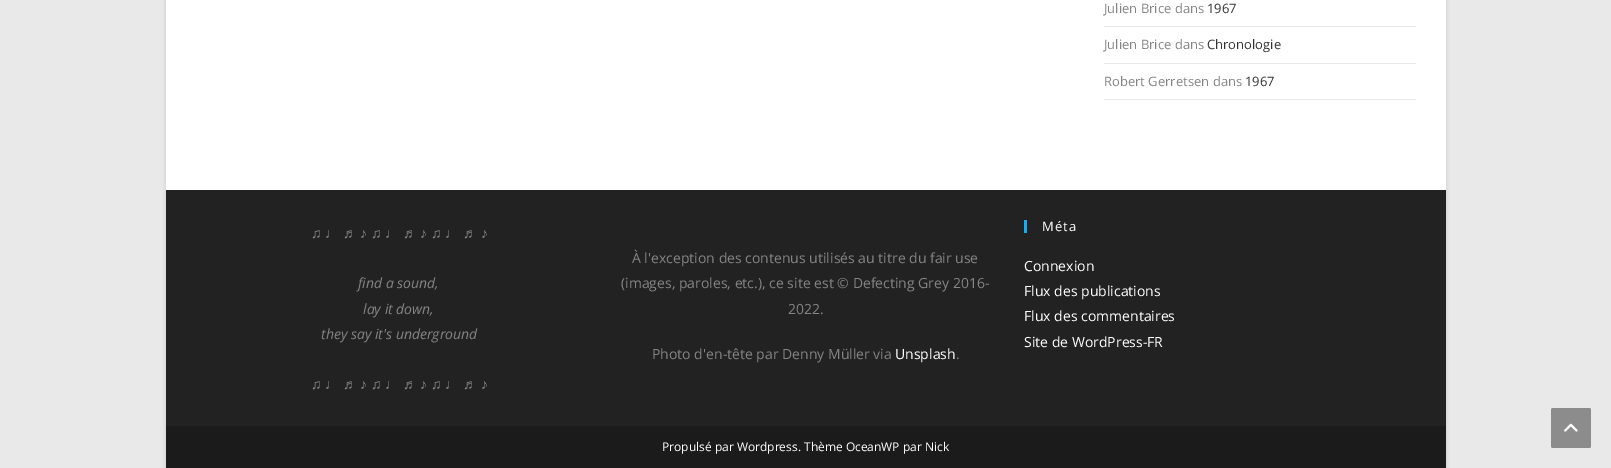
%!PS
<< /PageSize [1611 468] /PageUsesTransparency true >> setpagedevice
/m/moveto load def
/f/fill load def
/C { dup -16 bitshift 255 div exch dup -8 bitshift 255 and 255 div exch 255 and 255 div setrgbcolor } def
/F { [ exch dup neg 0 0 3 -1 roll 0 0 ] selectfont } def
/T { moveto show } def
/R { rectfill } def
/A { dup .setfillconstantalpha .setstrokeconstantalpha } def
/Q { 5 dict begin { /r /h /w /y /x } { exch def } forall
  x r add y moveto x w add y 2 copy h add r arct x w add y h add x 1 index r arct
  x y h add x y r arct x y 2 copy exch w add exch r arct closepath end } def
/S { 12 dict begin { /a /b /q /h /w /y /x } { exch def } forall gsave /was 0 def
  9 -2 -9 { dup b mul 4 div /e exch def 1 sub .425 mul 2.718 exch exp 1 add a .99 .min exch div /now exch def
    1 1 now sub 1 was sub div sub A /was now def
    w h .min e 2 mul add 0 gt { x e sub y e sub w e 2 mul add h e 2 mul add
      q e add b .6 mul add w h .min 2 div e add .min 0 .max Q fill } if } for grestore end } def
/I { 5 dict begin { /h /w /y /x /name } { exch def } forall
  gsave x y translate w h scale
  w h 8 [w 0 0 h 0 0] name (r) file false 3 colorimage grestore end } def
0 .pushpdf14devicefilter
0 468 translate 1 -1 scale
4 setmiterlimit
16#E9E9E9 C
0 0 1611 468 R
16#000000 C
166 -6 1280 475 0 2 .15 S
16#FFFFFF C
166 0 1280 190 R
16#E9E9E9 C
1104 26 312 1 R
/OpenSans-Regular 13 F
16#848484 C
(Julien Brice dans) 1104 13 T
16#333333 C
(1967) 1207 13 T
16#E9E9E9 C
1104 63 312 1 R
16#848484 C
(Julien Brice dans) 1104 49 T
16#333333 C
(Chronologie) 1207 49 T
16#E9E9E9 C
1104 99 312 1 R
16#848484 C
(Robert Gerretsen dans) 1104 86 T
16#333333 C
(1967) 1245 86 T
16#222222 C
166 190 1280 236 R
/LiberationSans-Regular 14 F
16#848484 C
311 238 m -.25 0 32 (♫ ♩ ♬ ♪ ♫ ♩ ♬ ♪ ♫ ♩ ♬ ♪) widthshow
/OpenSans-Italic 14 F
(find a sound,) 358 288 T
(lay it down,) 363 314 T
(they say it's underground) 321 339 T
/LiberationSans-Regular 14 F
311 389 m -.25 0 32 (♫ ♩ ♬ ♪ ♫ ♩ ♬ ♪ ♫ ♩ ♬ ♪) widthshow
/OpenSans-Regular 14 F
(À l'exception des contenus utilisés au titre du fair use) 632 263 T
(\(images, paroles, etc.\), ce site est © Defecting Grey 2016-) 621 288 T
(2022.) 788 314 T
(Photo d'en-tête par Denny Müller via) 652 359 T
16#FFFFFF C
(Unsplash) 895 359 T
16#848484 C
(.) 956 359 T
16#13AFF0 C
1024 220 3 13 R
/OpenSans-Regular 13 F
16#FFFFFF C
1042 231 m 1 0 (Méta) ashow
/OpenSans-Regular 14 F
(Connexion) 1024 271 T
(Flux des publications) 1024 296 T
(Flux des commentaires) 1024 321 T
(Site de WordPress-FR) 1024 347 T
16#1B1B1B C
166 426 1280 42 R
/OpenSans-Regular 12 F
16#FFFFFF C
(Propulsé par Wordpress. Thème OceanWP par Nick) 662 451 T
16#8C8C8C C
1551 408 40 40 2 Q f
(1.rgb) 1564 423 14 9 I
.poppdf14devicefilter showpage
